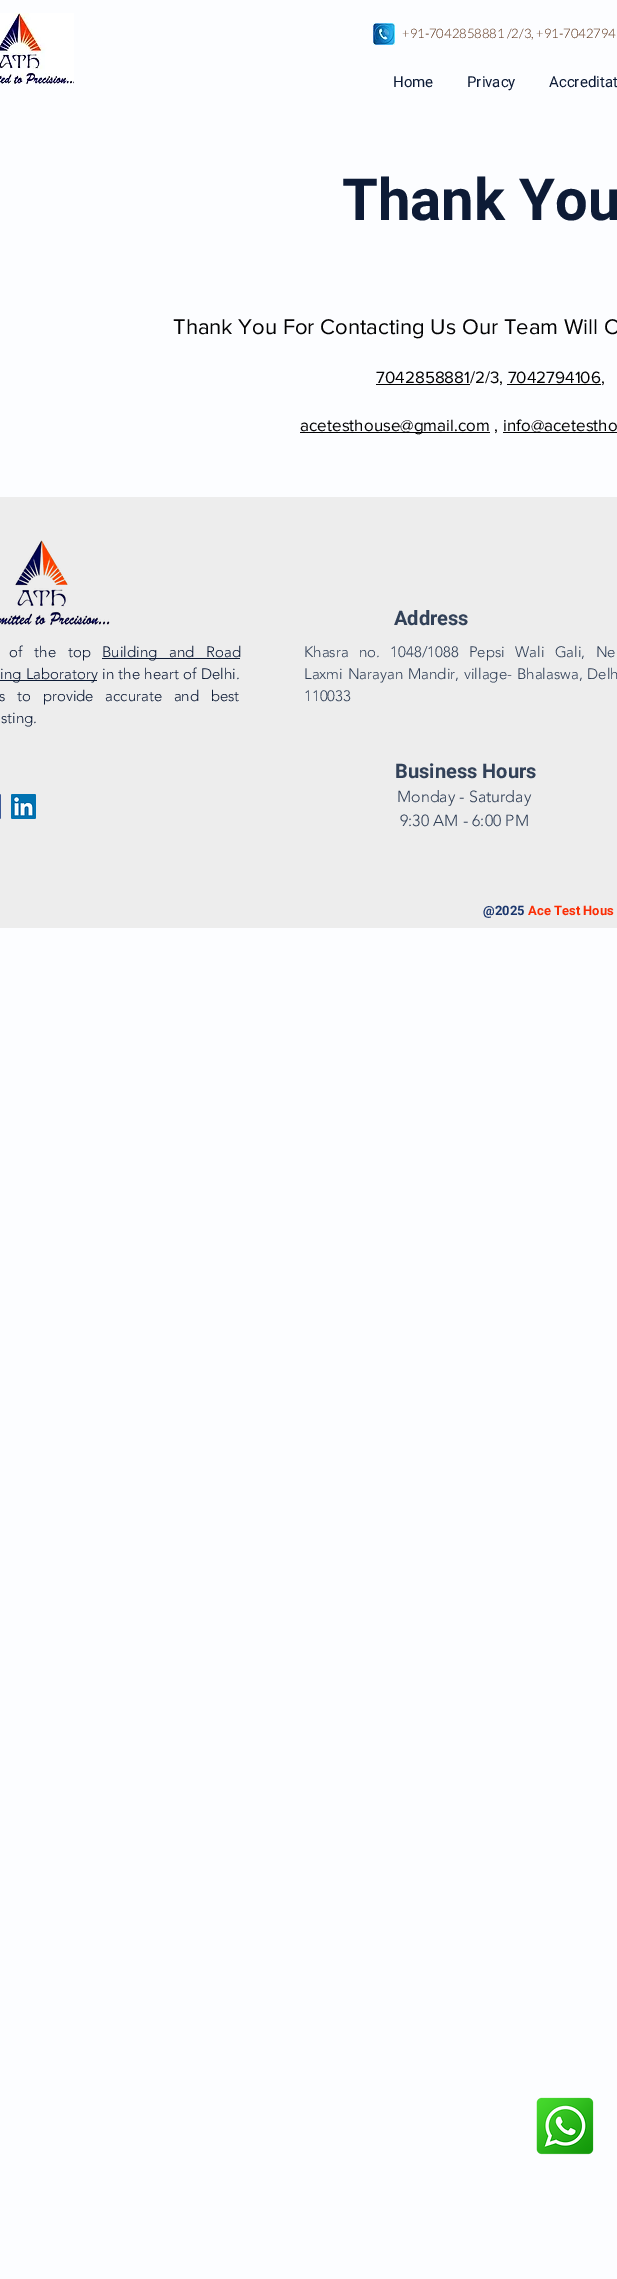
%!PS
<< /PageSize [617 2279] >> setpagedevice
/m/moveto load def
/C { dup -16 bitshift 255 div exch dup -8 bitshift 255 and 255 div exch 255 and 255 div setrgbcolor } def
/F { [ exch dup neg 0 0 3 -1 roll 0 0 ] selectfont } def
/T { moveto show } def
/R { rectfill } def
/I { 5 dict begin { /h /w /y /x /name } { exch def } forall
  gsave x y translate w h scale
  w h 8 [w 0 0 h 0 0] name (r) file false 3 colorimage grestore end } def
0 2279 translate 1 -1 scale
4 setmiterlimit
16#FCFDFF C
0 0 617 2279 R
(1.rgb) 0 13 74 72 I
(2.rgb) 373 23 22 22 I
/Lato-Light 13 F
16#53270C C
(+91-7042858881 /2/3, +91-7042794) 402 38 T
/Roboto-Regular 15 F
16#0D1B36 C
(Home) 393 87 T
(Privacy) 467 87 T
(Accreditat) 549 87 T
/Roboto-Bold 58 F
(Thank You) 342 220 T
/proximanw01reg-Regular 22 F
16#020203 C
(Thank You For Contacting Us Our Team Will C) 173 334 T
376 384 94 1 R
/proximanw01reg-Regular 17 F
(7042858881/2/3, 7042794106,) 376 383 T
507 384 94 1 R
300 432 190 1 R
(acetesthouse@gmail.com ,) 300 431 T
503 432 114 1 R
(info@acetestho) 503 431 T
16#EDEDED C
0 497 617 431 R
(3.rgb) 0 540 110 86 I
/Roboto-Bold 20 F
16#324158 C
(Address) 394 625 T
/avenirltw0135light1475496-Light 15 F
16#0D1B36 C
9 657 m 8 0 32 (of the top) widthshow
102 658 138 1 R
102 657 m 8 0 32 (Building and Road) widthshow
0 680 97 1 R
0 679 m .5 0 32 (ing Laboratory) widthshow
102 679 m .5 0 32 (in the heart of Delhi.) widthshow
-1 701 m 7.75 0 32 (s to provide accurate and best) widthshow
(sting.) 1 723 T
16#324158 C
304 657 m 6.5 0 32 (Khasra no. 1048/1088 Pepsi Wali Gali, Ne) widthshow
304 679 m 1 0 32 (Laxmi Narayan Mandir, village- Bhalaswa, Delh) widthshow
(110033) 304 701 T
/Roboto-Bold 20 F
(Business Hours) 395 778 T
(4.rgb) 0 794 1 25 I
(5.rgb) 11 794 25 25 I
/avenirltw0135light1475496-Light 16 F
(Monday - Saturday) 397 802 T
(9:30 AM - 6:00 PM) 400 826 T
/Roboto-Bold 13 F
16#1A366D C
(@2025) 483 915 T
16#FB2E05 C
(Ace Test Hous) 528 915 T
(6.rgb) 536 2097 58 58 I
showpage
